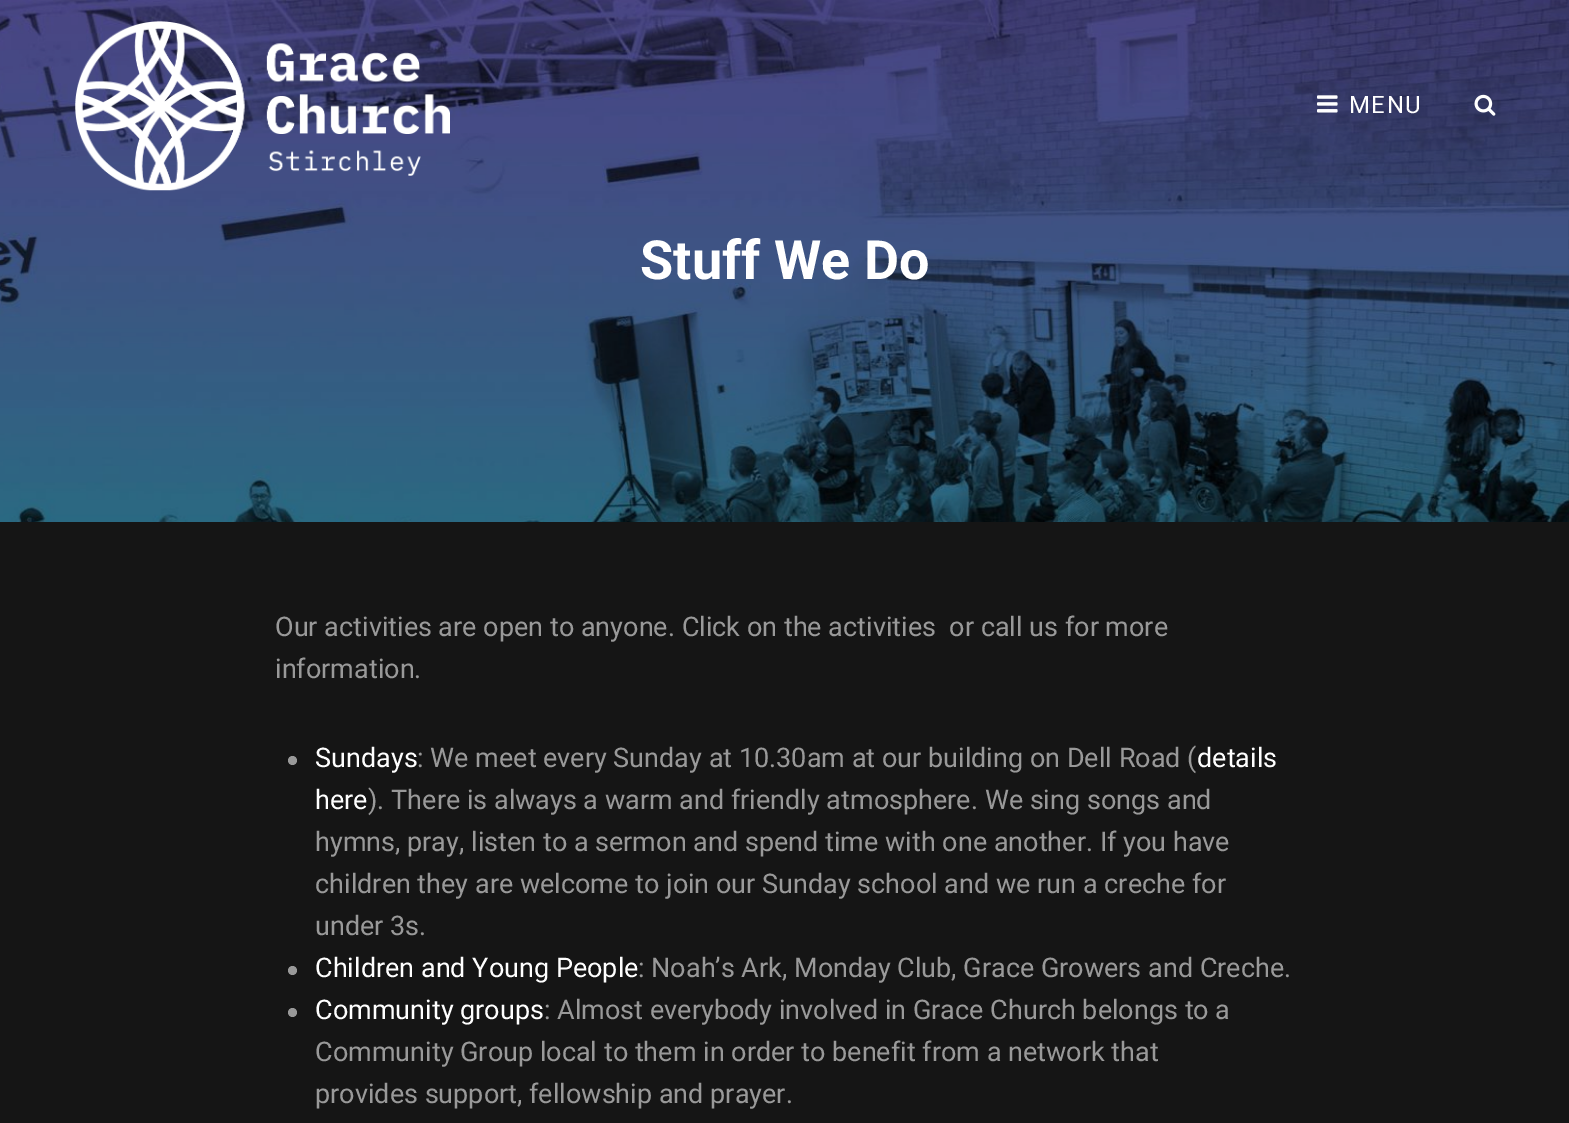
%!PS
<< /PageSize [1569 1123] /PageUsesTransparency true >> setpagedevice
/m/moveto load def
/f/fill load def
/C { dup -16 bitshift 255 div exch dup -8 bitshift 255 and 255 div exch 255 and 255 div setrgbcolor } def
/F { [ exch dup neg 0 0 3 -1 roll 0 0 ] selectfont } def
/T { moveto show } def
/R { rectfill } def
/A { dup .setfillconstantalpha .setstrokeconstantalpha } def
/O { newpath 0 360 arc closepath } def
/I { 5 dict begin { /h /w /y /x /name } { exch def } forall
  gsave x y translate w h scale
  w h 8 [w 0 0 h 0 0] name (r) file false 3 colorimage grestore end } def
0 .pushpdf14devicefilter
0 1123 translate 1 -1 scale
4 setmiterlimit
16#FFFFFF C
0 0 1569 1123 R
(5.rgb) 1568 0 1 522 I
(4.rgb) 0 0 1569 522 I
0.2 A
16#000000 C
0 0 1569 522 R
1 A
(1.rgb) 75 21 375 170 I
(2.rgb) 1317 95 21 18 I
/Roboto-Regular 24 F
16#FFFFFF C
1349 113 m 1.5 0 (MENU) ashow
(3.rgb) 1474 94 22 22 I
/Roboto-Bold 54 F
(Stuff We Do) 640 279 T
16#151515 C
0 522 1569 601 R
/Roboto-Regular 27 F
16#999999 C
(Our activities are open to anyone. Click on the activities  or call us for more) 275 636 T
(information.) 275 678 T
292.5 760.5 4.5 O f
16#FFFFFF C
(Sundays) 315 767 T
16#999999 C
(: We meet every Sunday at 10.30am at our building on Dell Road \() 417 767 T
16#FFFFFF C
(details) 1197 767 T
(here) 315 809 T
16#999999 C
(\). There is always a warm and friendly atmosphere. We sing songs and) 368 809 T
(hymns, pray, listen to a sermon and spend time with one another. If you have) 315 851 T
(children they are welcome to join our Sunday school and we run a creche for) 315 893 T
(under 3s.) 315 935 T
292.5 970.5 4.5 O f
16#FFFFFF C
(Children and Young People) 315 977 T
16#999999 C
(: Noah’s Ark, Monday Club, Grace Growers and Creche.) 638 977 T
292.5 1012.5 4.5 O f
16#FFFFFF C
(Community groups) 315 1019 T
16#999999 C
(: Almost everybody involved in Grace Church belongs to a) 544 1019 T
(Community Group local to them in order to benefit from a network that) 315 1061 T
(provides support, fellowship and prayer.) 315 1103 T
.poppdf14devicefilter showpage
